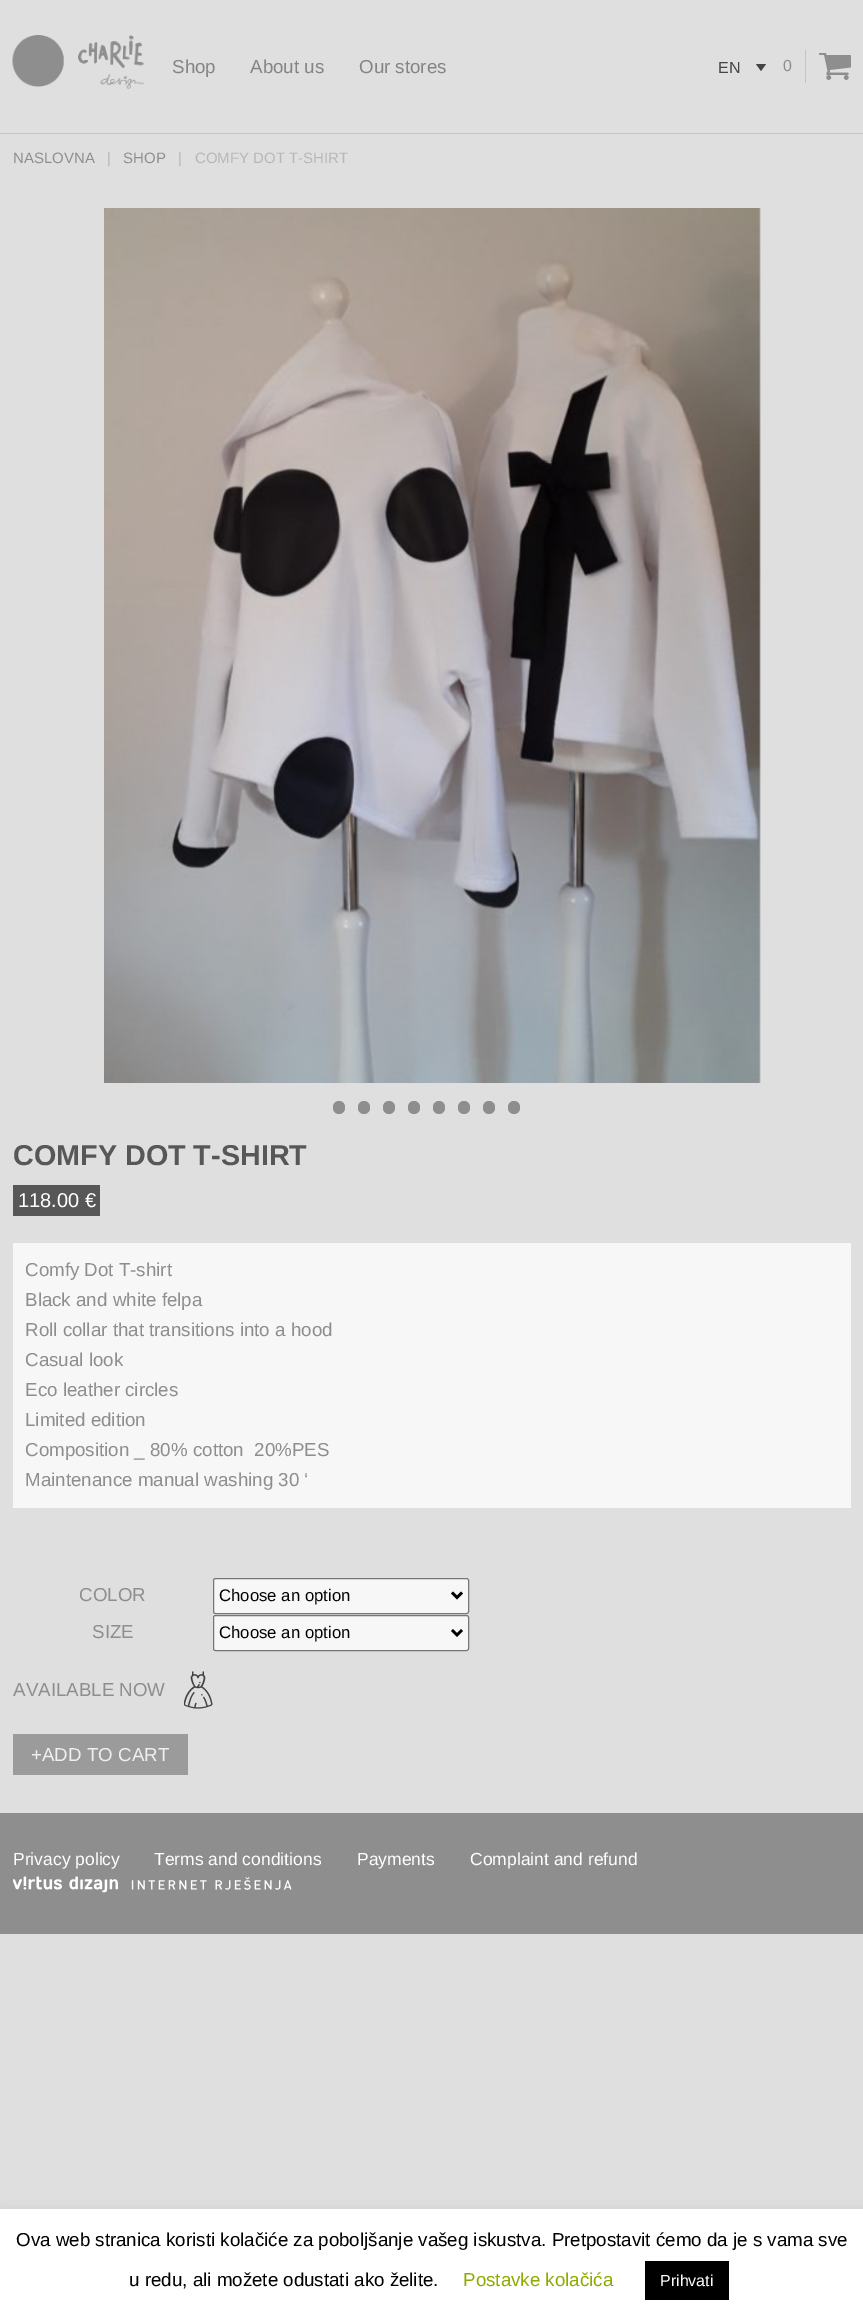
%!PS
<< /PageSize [863 2321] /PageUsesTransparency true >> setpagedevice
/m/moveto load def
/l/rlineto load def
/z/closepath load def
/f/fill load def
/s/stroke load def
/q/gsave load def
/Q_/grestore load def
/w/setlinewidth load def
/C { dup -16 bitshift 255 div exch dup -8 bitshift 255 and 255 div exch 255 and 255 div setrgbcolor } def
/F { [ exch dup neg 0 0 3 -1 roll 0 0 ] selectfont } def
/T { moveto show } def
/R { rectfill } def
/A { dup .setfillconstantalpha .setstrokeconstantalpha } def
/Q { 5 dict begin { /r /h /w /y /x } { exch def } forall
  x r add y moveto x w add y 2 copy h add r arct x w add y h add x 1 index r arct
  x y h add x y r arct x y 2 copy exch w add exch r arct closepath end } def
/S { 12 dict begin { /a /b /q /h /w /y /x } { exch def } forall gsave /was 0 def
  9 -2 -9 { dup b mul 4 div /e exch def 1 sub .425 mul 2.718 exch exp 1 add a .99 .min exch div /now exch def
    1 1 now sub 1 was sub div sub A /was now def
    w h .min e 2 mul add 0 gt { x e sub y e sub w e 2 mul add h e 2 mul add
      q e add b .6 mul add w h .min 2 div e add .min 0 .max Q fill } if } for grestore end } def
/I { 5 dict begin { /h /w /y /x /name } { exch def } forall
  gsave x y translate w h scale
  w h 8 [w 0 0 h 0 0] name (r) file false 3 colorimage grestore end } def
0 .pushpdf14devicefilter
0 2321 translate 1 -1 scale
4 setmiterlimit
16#DFDFDF C
0 0 863 2321 R
(1.rgb) 12 35 132 54 I
/LiberationSans-Regular 18.75 F
16#868484 C
(Shop) 172 73 T
(About us) 250 73 T
(Our stores) 359 73 T
/LiberationSans-Regular 16 F
16#444444 C
(EN) 718 73 T
756 64 m 10 0 l -5 7 l z f
16#C4C4C4 C
805 50 1 33 R
16#8E8E8E C
(0) 783 71 T
(2.rgb) 819 53 32 27 I
16#C4C4C4 C
0 133 863 1 R
/LiberationSans-Regular 15 F
16#8E8E8E C
(NASLOVNA) 13 163 T
16#B7B7B7 C
(|) 107 163 T
16#8E8E8E C
(SHOP) 123 163 T
16#B7B7B7 C
(|) 178 163 T
(COMFY DOT T-SHIRT) 195 163 T
(3.rgb) 104 208 657 875 I
16#8E8E8E C
333 1101 12 13 6 Q f
358 1101 12 13 6 Q f
383 1101 12 13 6 Q f
408 1101 12 13 6 Q f
433 1101 12 13 6 Q f
458 1101 12 13 6 Q f
483 1101 12 13 6 Q f
508 1101 12 13 6 Q f
/LiberationSans-Bold 28.75 F
16#585757 C
(COMFY DOT T-SHIRT) 13 1165 T
13 1185 87 31 R
/LiberationSans-Regular 20 F
16#FFFFFF C
(118.00 €) 18 1207 T
16#F7F7F7 C
13 1243 838 265 R
/LiberationSans-Regular 18.75 F
16#8E8E8E C
(Comfy Dot T-shirt) 25 1276 T
(Black and white felpa) 25 1306 T
(Roll collar that transitions into a hood) 25 1336 T
(Casual look) 25 1366 T
(Eco leather circles) 25 1396 T
(Limited edition) 25 1426 T
(Composition _ 80% cotton  20%PES) 25 1456 T
(Maintenance manual washing 30 ‘) 25 1486 T
(COLOR) 79 1601 T
16#F7F7F7 C
213.5 1578.5 255 35 2 Q q f Q_
16#767676 C
s
16#000000 C
2.5 w
452 1592.5 m 5 5 l 5 -5 l s
/LiberationSans-Regular 16.75 F
(Choose an option) 219 1601 T
/LiberationSans-Regular 18.75 F
16#8E8E8E C
(SIZE) 92 1638 T
16#F7F7F7 C
213.5 1615.5 255 35 2 Q q f Q_
16#767676 C
1 w
s
16#000000 C
2.5 w
452 1630 m 5 5 l 5 -5 l s
/LiberationSans-Regular 16.75 F
(Choose an option) 219 1638 T
/LiberationSans-Regular 18.75 F
16#8E8E8E C
(AVAILABLE NOW) 13 1696 T
(4.rgb) 184 1671 29 38 I
16#9C9B9B C
13 1734 175 41 R
16#EFEFEF C
(+ADD TO CART) 31 1761 T
16#8E8E8E C
0 1813 863 121 R
/LiberationSans-Regular 17.5 F
16#FFFFFF C
(Privacy policy) 13 1865 T
(Terms and conditions) 154 1865 T
(Payments) 357 1865 T
(Complaint and refund) 470 1865 T
(5.rgb) 13 1876 279 17 I
16#ACABAB C
0 2208 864 112 0 6 .3 S
16#FFFFFF C
0 2209 863 112 R
/LiberationSans-Regular 18.75 F
16#000000 C
(Ova web stranica koristi kolačiće za poboljšanje vašeg iskustva. Pretpostavit ćemo da je s vama sve) 16 2246 T
(u redu, ali možete odustati ako želite.) 129 2286 T
16#91AA00 C
(Postavke kolačića) 463 2286 T
16#000000 C
645 2261 84 39 R
/LiberationSans-Regular 16 F
16#FFFFFF C
(Prihvati) 660 2286 T
.poppdf14devicefilter showpage
